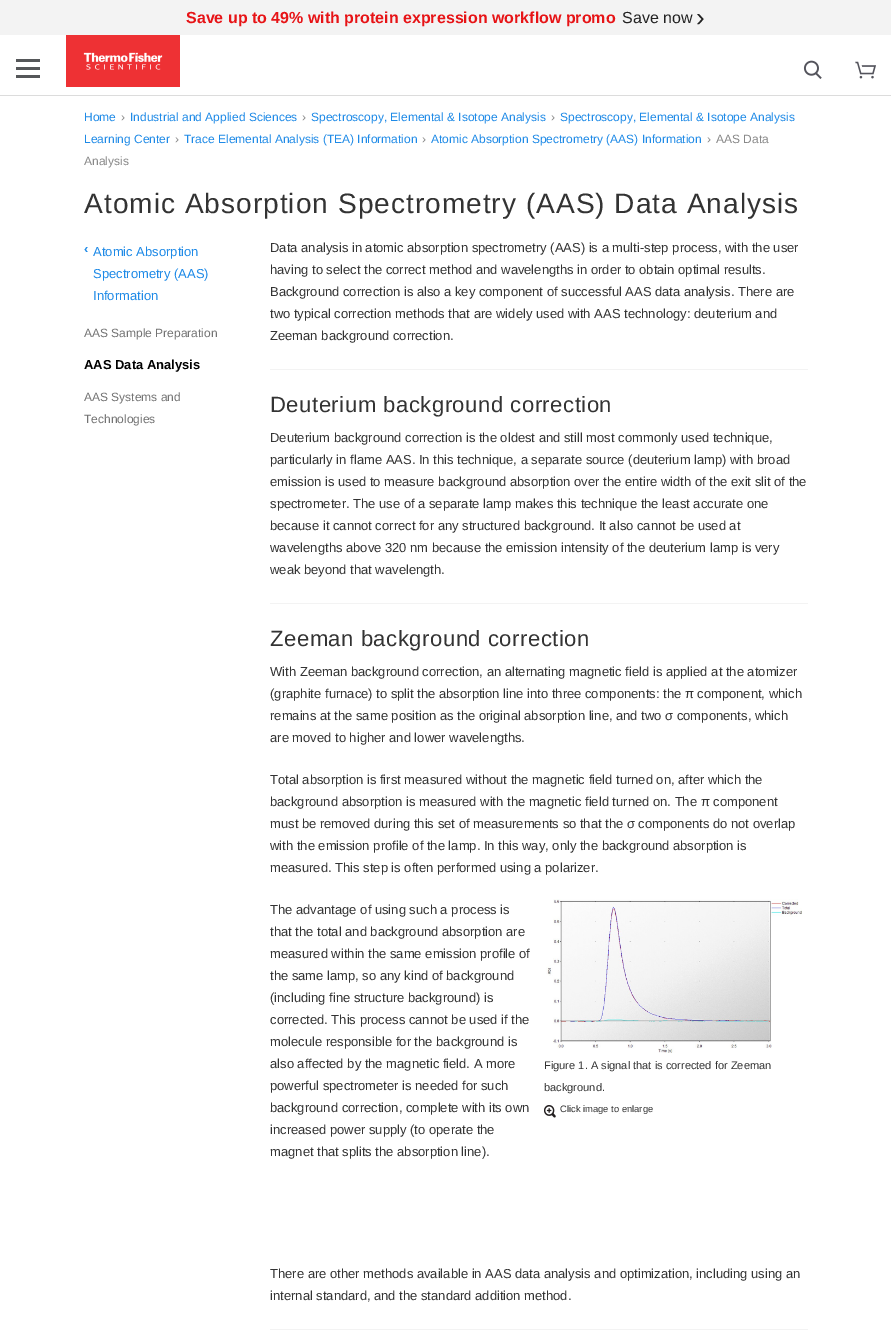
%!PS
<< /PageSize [891 1340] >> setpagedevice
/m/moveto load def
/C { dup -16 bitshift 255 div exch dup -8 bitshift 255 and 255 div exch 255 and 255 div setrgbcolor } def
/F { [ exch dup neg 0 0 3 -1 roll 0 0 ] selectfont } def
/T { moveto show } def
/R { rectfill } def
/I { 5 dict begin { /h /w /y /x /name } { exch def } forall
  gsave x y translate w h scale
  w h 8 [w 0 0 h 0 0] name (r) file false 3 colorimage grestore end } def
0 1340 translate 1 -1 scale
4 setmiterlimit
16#FFFFFF C
0 0 891 1340 R
16#DCDCDC C
0 95 891 1 R
16#F3F3F3 C
0 0 891 35 R
/LiberationSans-Bold 16 F
16#E71316 C
(Save up to 49% with protein expression workflow promo) 186 23 T
/LiberationSans-Regular 16 F
16#222222 C
(Save now) 622 23 T
/LiberationSans-Regular 26 F
(›) 696 26 T
16#555759 C
16 67 24 3 R
16 59 24 3 R
16 75 24 3 R
(1.rgb) 66 35 114 52 I
(2.rgb) 803 60 19 19 I
(3.rgb) 855 61 21 18 I
/LiberationSans-Regular 12 F
16#1E8AE7 C
(Home) 84 121 T
16#888888 C
(›) 121 121 T
16#1E8AE7 C
(Industrial and Applied Sciences) 130 121 T
16#888888 C
(›) 302 121 T
16#1E8AE7 C
(Spectroscopy, Elemental & Isotope Analysis) 311 121 T
16#888888 C
(›) 551 121 T
16#1E8AE7 C
(Spectroscopy, Elemental & Isotope Analysis) 560 121 T
(Learning Center) 84 143 T
16#888888 C
(›) 175 143 T
16#1E8AE7 C
(Trace Elemental Analysis \(TEA\) Information) 184 143 T
16#888888 C
(›) 422 143 T
16#1E8AE7 C
(Atomic Absorption Spectrometry \(AAS\) Information) 431 143 T
16#888888 C
(›) 707 143 T
(AAS Data) 716 143 T
(Analysis) 84 165 T
/LiberationSans-Regular 28.1 F
16#333333 C
84 213 m 1 0 (Atomic Absorption Spectrometry \(AAS\) Data Analysis) ashow
/LiberationSans-Bold 13 F
16#1E8AE7 C
(‹) 84 253 T
/LiberationSans-Regular 13 F
(Atomic Absorption) 93 256 T
(Spectrometry \(AAS\)) 93 278 T
(Information) 93 300 T
/LiberationSans-Regular 12 F
16#737373 C
(AAS Sample Preparation) 84 337 T
/LiberationSans-Bold 13 F
16#000000 C
(AAS Data Analysis) 84 369 T
/LiberationSans-Regular 12 F
16#737373 C
(AAS Systems and) 84 401 T
(Technologies) 84 423 T
/LiberationSans-Regular 13 F
16#333333 C
(Data analysis in atomic absorption spectrometry \(AAS\) is a multi-step process, with the user) 270 252 T
(having to select the correct method and wavelengths in order to obtain optimal results.) 270 274 T
(Background correction is also a key component of successful AAS data analysis. There are) 270 296 T
(two typical correction methods that are widely used with AAS technology: deuterium and) 270 318 T
(Zeeman background correction.) 270 340 T
16#F3F3F3 C
270 369 538 1 R
/LiberationSans-Regular 22.1 F
16#333333 C
270 412 m .5 0 (Deuterium background correction) ashow
/LiberationSans-Regular 13 F
(Deuterium background correction is the oldest and still most commonly used technique,) 270 442 T
(particularly in flame AAS. In this technique, a separate source \(deuterium lamp\) with broad) 270 464 T
(emission is used to measure background absorption over the entire width of the exit slit of the) 270 486 T
(spectrometer. The use of a separate lamp makes this technique the least accurate one) 270 508 T
(because it cannot correct for any structured background. It also cannot be used at) 270 530 T
(wavelengths above 320 nm because the emission intensity of the deuterium lamp is very) 270 552 T
(weak beyond that wavelength.) 270 574 T
16#F3F3F3 C
270 603 538 1 R
/LiberationSans-Regular 22.1 F
16#333333 C
270 646 m .5 0 (Zeeman background correction) ashow
/LiberationSans-Regular 13 F
(With Zeeman background correction, an alternating magnetic field is applied at the atomizer) 270 676 T
(\(graphite furnace\) to split the absorption line into three components: the π component, which) 270 698 T
(remains at the same position as the original absorption line, and two σ components, which) 270 720 T
(are moved to higher and lower wavelengths.) 270 742 T
(Total absorption is first measured without the magnetic field turned on, after which the) 270 784 T
(background absorption is measured with the magnetic field turned on. The π component) 270 806 T
(must be removed during this set of measurements so that the σ components do not overlap) 270 828 T
(with the emission profile of the lamp. In this way, only the background absorption is) 270 850 T
(measured. This step is often performed using a polarizer.) 270 872 T
(The advantage of using such a process is) 270 914 T
(that the total and background absorption are) 270 936 T
(measured within the same emission profile of) 270 958 T
(the same lamp, so any kind of background) 270 980 T
(\(including fine structure background\) is) 270 1002 T
(corrected. This process cannot be used if the) 270 1024 T
(molecule responsible for the background is) 270 1046 T
(also affected by the magnetic field. A more) 270 1068 T
(powerful spectrometer is needed for such) 270 1090 T
(background correction, complete with its own) 270 1112 T
(increased power supply \(to operate the) 270 1134 T
(magnet that splits the absorption line\).) 270 1156 T
(4.rgb) 546 899 256 154 I
/LiberationSans-Regular 11.05 F
(Figure 1. A signal that is corrected for Zeeman) 544 1069 T
(background.) 544 1091 T
(5.rgb) 544 1105 12 13 I
/LiberationSans-Regular 9.4 F
(Click image to enlarge) 560 1112 T
/LiberationSans-Regular 13 F
(There are other methods available in AAS data analysis and optimization, including using an) 270 1278 T
(internal standard, and the standard addition method.) 270 1300 T
16#F3F3F3 C
270 1329 538 1 R
showpage
